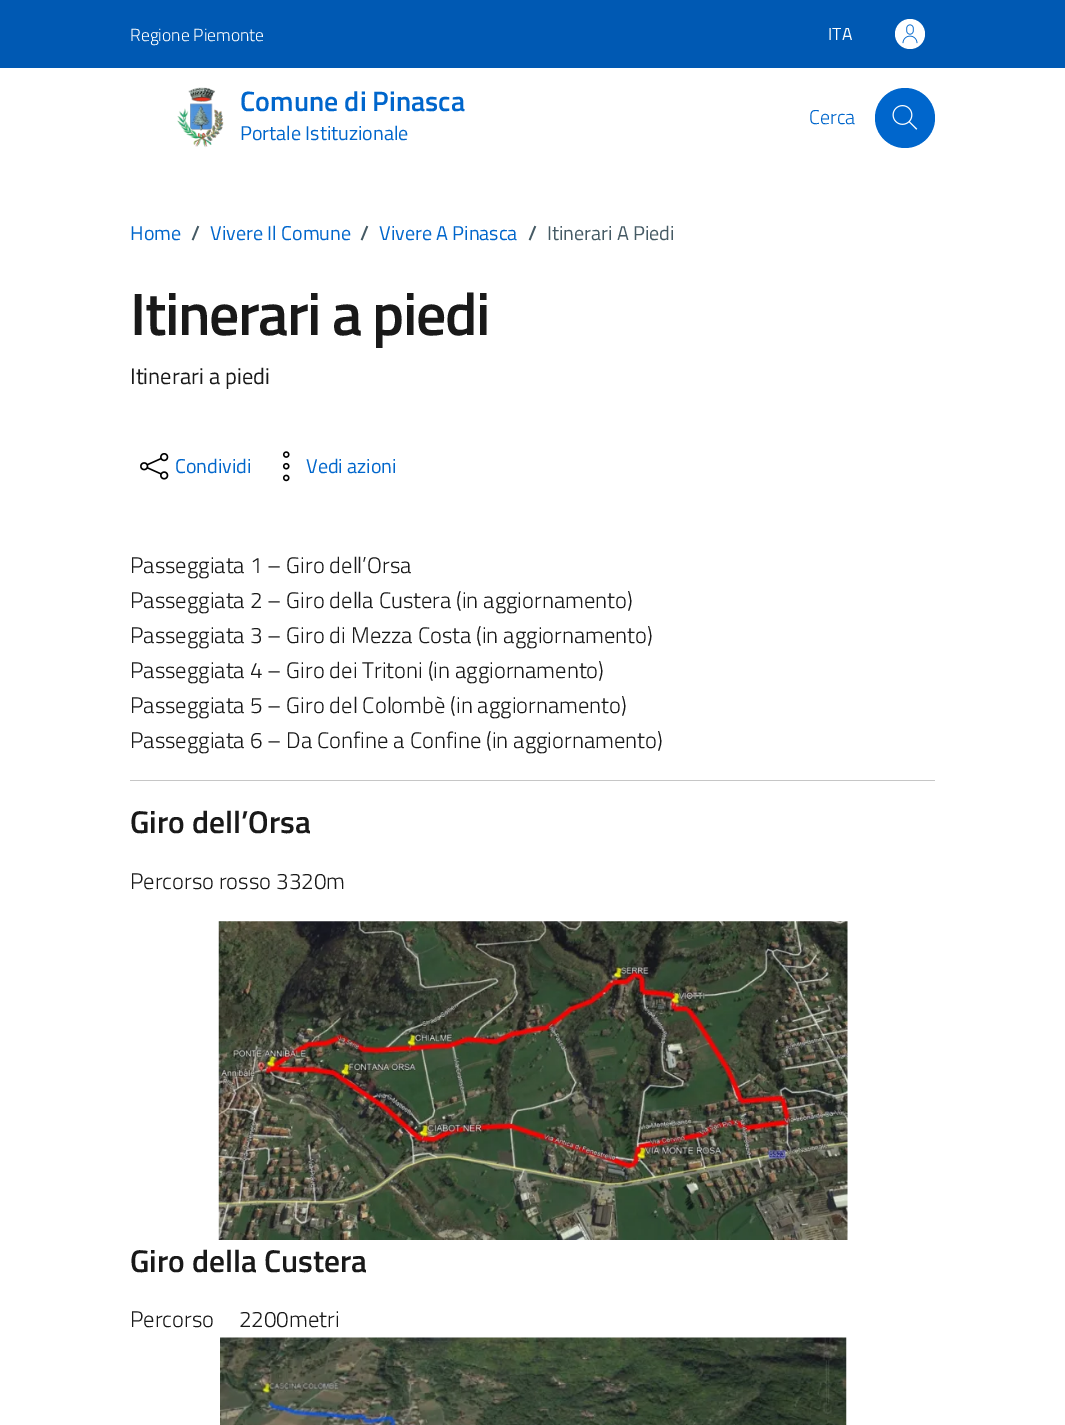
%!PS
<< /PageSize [1065 1425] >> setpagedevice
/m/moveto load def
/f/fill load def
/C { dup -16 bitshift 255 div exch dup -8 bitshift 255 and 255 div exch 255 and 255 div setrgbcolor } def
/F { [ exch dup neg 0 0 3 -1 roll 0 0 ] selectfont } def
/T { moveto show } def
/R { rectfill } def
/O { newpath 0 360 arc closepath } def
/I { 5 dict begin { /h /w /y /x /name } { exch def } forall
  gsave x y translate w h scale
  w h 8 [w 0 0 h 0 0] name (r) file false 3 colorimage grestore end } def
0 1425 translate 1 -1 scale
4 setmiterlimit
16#FFFFFF C
0 0 1065 1425 R
16#0059B3 C
0 0 1065 68 R
/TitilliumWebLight-Light 17.5 F
16#FFFFFF C
(Regione Piemonte) 130 41 T
/TitilliumWeb-Regular 17.5 F
(ITA) 828 40 T
910 34 15 O f
(1.rgb) 902 24 16 20 I
(2.rgb) 177 87 47 61 I
/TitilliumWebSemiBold-SemiBold 28 F
16#0066CC C
(Comune di Pinasca) 240 111 T
/TitilliumWeb-Regular 20 F
(Portale Istituzionale) 240 140 T
/TitilliumWebLight-Light 20 F
(Cerca) 809 124 T
905 118 30 O f
(3.rgb) 892 105 26 25 I
/TitilliumWeb-Regular 20 F
(Home) 130 240 T
/TitilliumWebSemiBold-SemiBold 20 F
16#455A64 C
(/) 191 240 T
/TitilliumWeb-Regular 20 F
16#0066CC C
(Vivere Il Comune) 210 240 T
/TitilliumWebSemiBold-SemiBold 20 F
16#455A64 C
(/) 360 240 T
/TitilliumWeb-Regular 20 F
16#0066CC C
(Vivere A Pinasca) 379 240 T
/TitilliumWebSemiBold-SemiBold 20 F
16#455A64 C
(/) 528 240 T
/TitilliumWeb-Regular 20 F
(Itinerari A Piedi) 547 240 T
/TitilliumWebSemiBold-SemiBold 60 F
16#191919 C
130 335 m -1.5 0 (Itinerari a piedi) ashow
/TitilliumWeb-Regular 22.5 F
(Itinerari a piedi) 130 384 T
(4.rgb) 140 453 29 27 I
/TitilliumWeb-Regular 20 F
16#0066CC C
(Condividi) 175 473 T
(5.rgb) 282 451 8 31 I
(Vedi azioni) 306 473 T
/TitilliumWebLight-Light 22.5 F
16#191919 C
(Passeggiata 1 – Giro dell’Orsa) 130 573 T
(Passeggiata 2 – Giro della Custera \(in aggiornamento\)) 130 608 T
(Passeggiata 3 – Giro di Mezza Costa \(in aggiornamento\)) 130 643 T
(Passeggiata 4 – Giro dei Tritoni \(in aggiornamento\)) 130 678 T
(Passeggiata 5 – Giro del Colombè \(in aggiornamento\)) 130 713 T
(Passeggiata 6 – Da Confine a Confine \(in aggiornamento\)) 130 748 T
16#C6C6C6 C
130 780 805 1 R
/TitilliumWebSemiBold-SemiBold 31.5 F
16#191919 C
(Giro dell’Orsa) 130 833 T
/TitilliumWebLight-Light 22.5 F
(Percorso rosso 3320m) 130 889 T
(6.rgb) 218 921 630 319 I
/TitilliumWebSemiBold-SemiBold 31.5 F
(Giro della Custera) 130 1272 T
/TitilliumWebLight-Light 22.5 F
(Percorso     2200metri) 130 1327 T
(7.rgb) 220 1337 627 88 I
showpage
